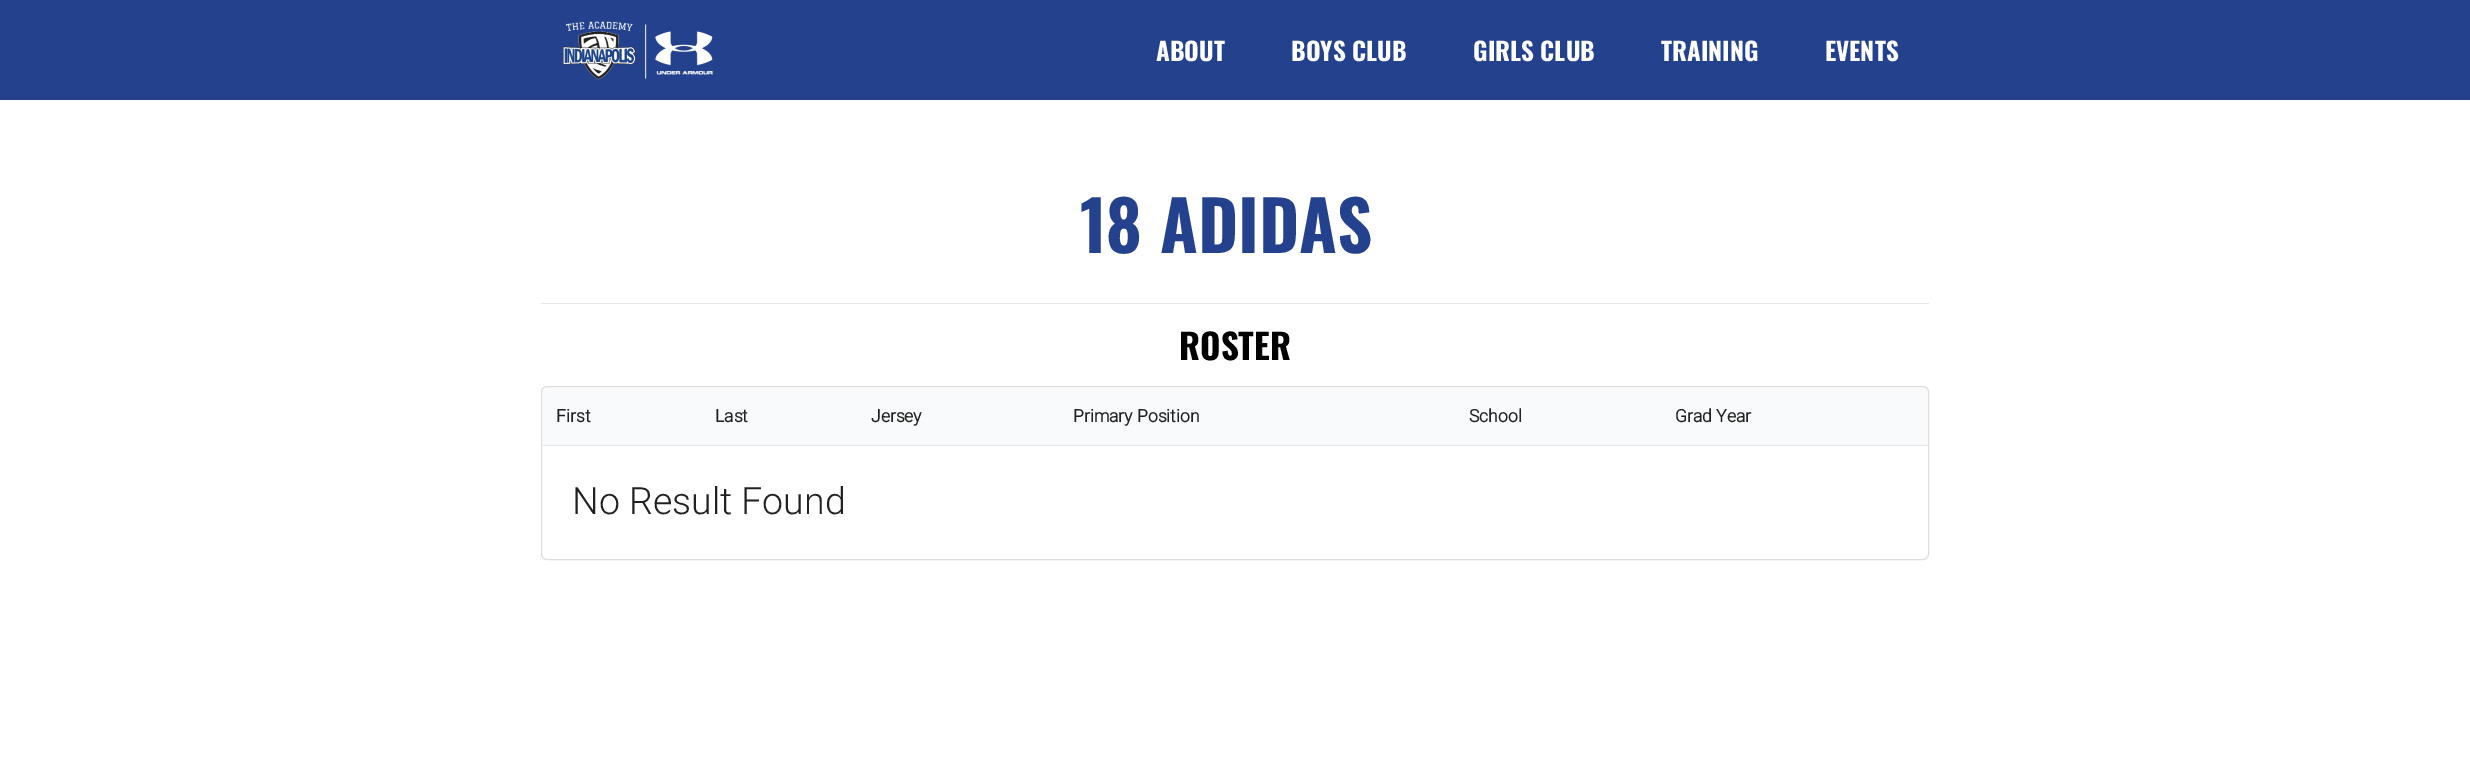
%!PS
<< /PageSize [2470 770] >> setpagedevice
/m/moveto load def
/l/rlineto load def
/c/rcurveto load def
/z/closepath load def
/f/fill load def
/s/stroke load def
/C { dup -16 bitshift 255 div exch dup -8 bitshift 255 and 255 div exch 255 and 255 div setrgbcolor } def
/F { [ exch dup neg 0 0 3 -1 roll 0 0 ] selectfont } def
/T { moveto show } def
/R { rectfill } def
/Q { 5 dict begin { /r /h /w /y /x } { exch def } forall
  x r add y moveto x w add y 2 copy h add r arct x w add y h add x 1 index r arct
  x y h add x y r arct x y 2 copy exch w add exch r arct closepath end } def
/I { 5 dict begin { /h /w /y /x /name } { exch def } forall
  gsave x y translate w h scale
  w h 8 [w 0 0 h 0 0] name (r) file false 3 colorimage grestore end } def
0 770 translate 1 -1 scale
4 setmiterlimit
16#FFFFFF C
0 0 2470 770 R
16#23418D C
0 0 2470 100 R
(1.rgb) 563 21 150 59 I
/Oswald-Bold 25 F
16#FFFFFF C
(ABOUT) 1156 61 T
(BOYS CLUB) 1291 61 T
(GIRLS CLUB) 1473 61 T
(TRAINING) 1661 61 T
(EVENTS) 1825 61 T
/Oswald-Bold 68.75 F
16#23418D C
(18 ADIDAS) 1080 253 T
16#E6E6E6 C
541 303 1388 1 R
/Oswald-Bold 35 F
16#000000 C
(ROSTER) 1179 360 T
16#DEDEDE C
541.5 386.5 1387 173 5.5 Q s
16#F9FAFB C
549 388 m 152 0 l 0 58 l -158 0 l 0 -52 l 0 -3.5 2.5 -6 6 -6 c z f
16#E3E5E6 C
543 445 1118 1 R
/Roboto-Bold 17.5 F
16#212121 C
(First) 556 422 T
16#F9FAFB C
701 388 960 57 R
16#212121 C
(Last) 715 422 T
(Jersey) 871 422 T
(Primary Position) 1073 422 T
(School) 1469 422 T
16#F9FAFB C
1661 388 m 261 0 l 3.5 0 6 2.5 6 6 c 0 52 l -267 0 l z f
16#E3E5E6 C
1661 445 267 1 R
16#212121 C
(Grad Year) 1675 422 T
/Roboto-Light 37.5 F
(No Result Found) 572 514 T
showpage
